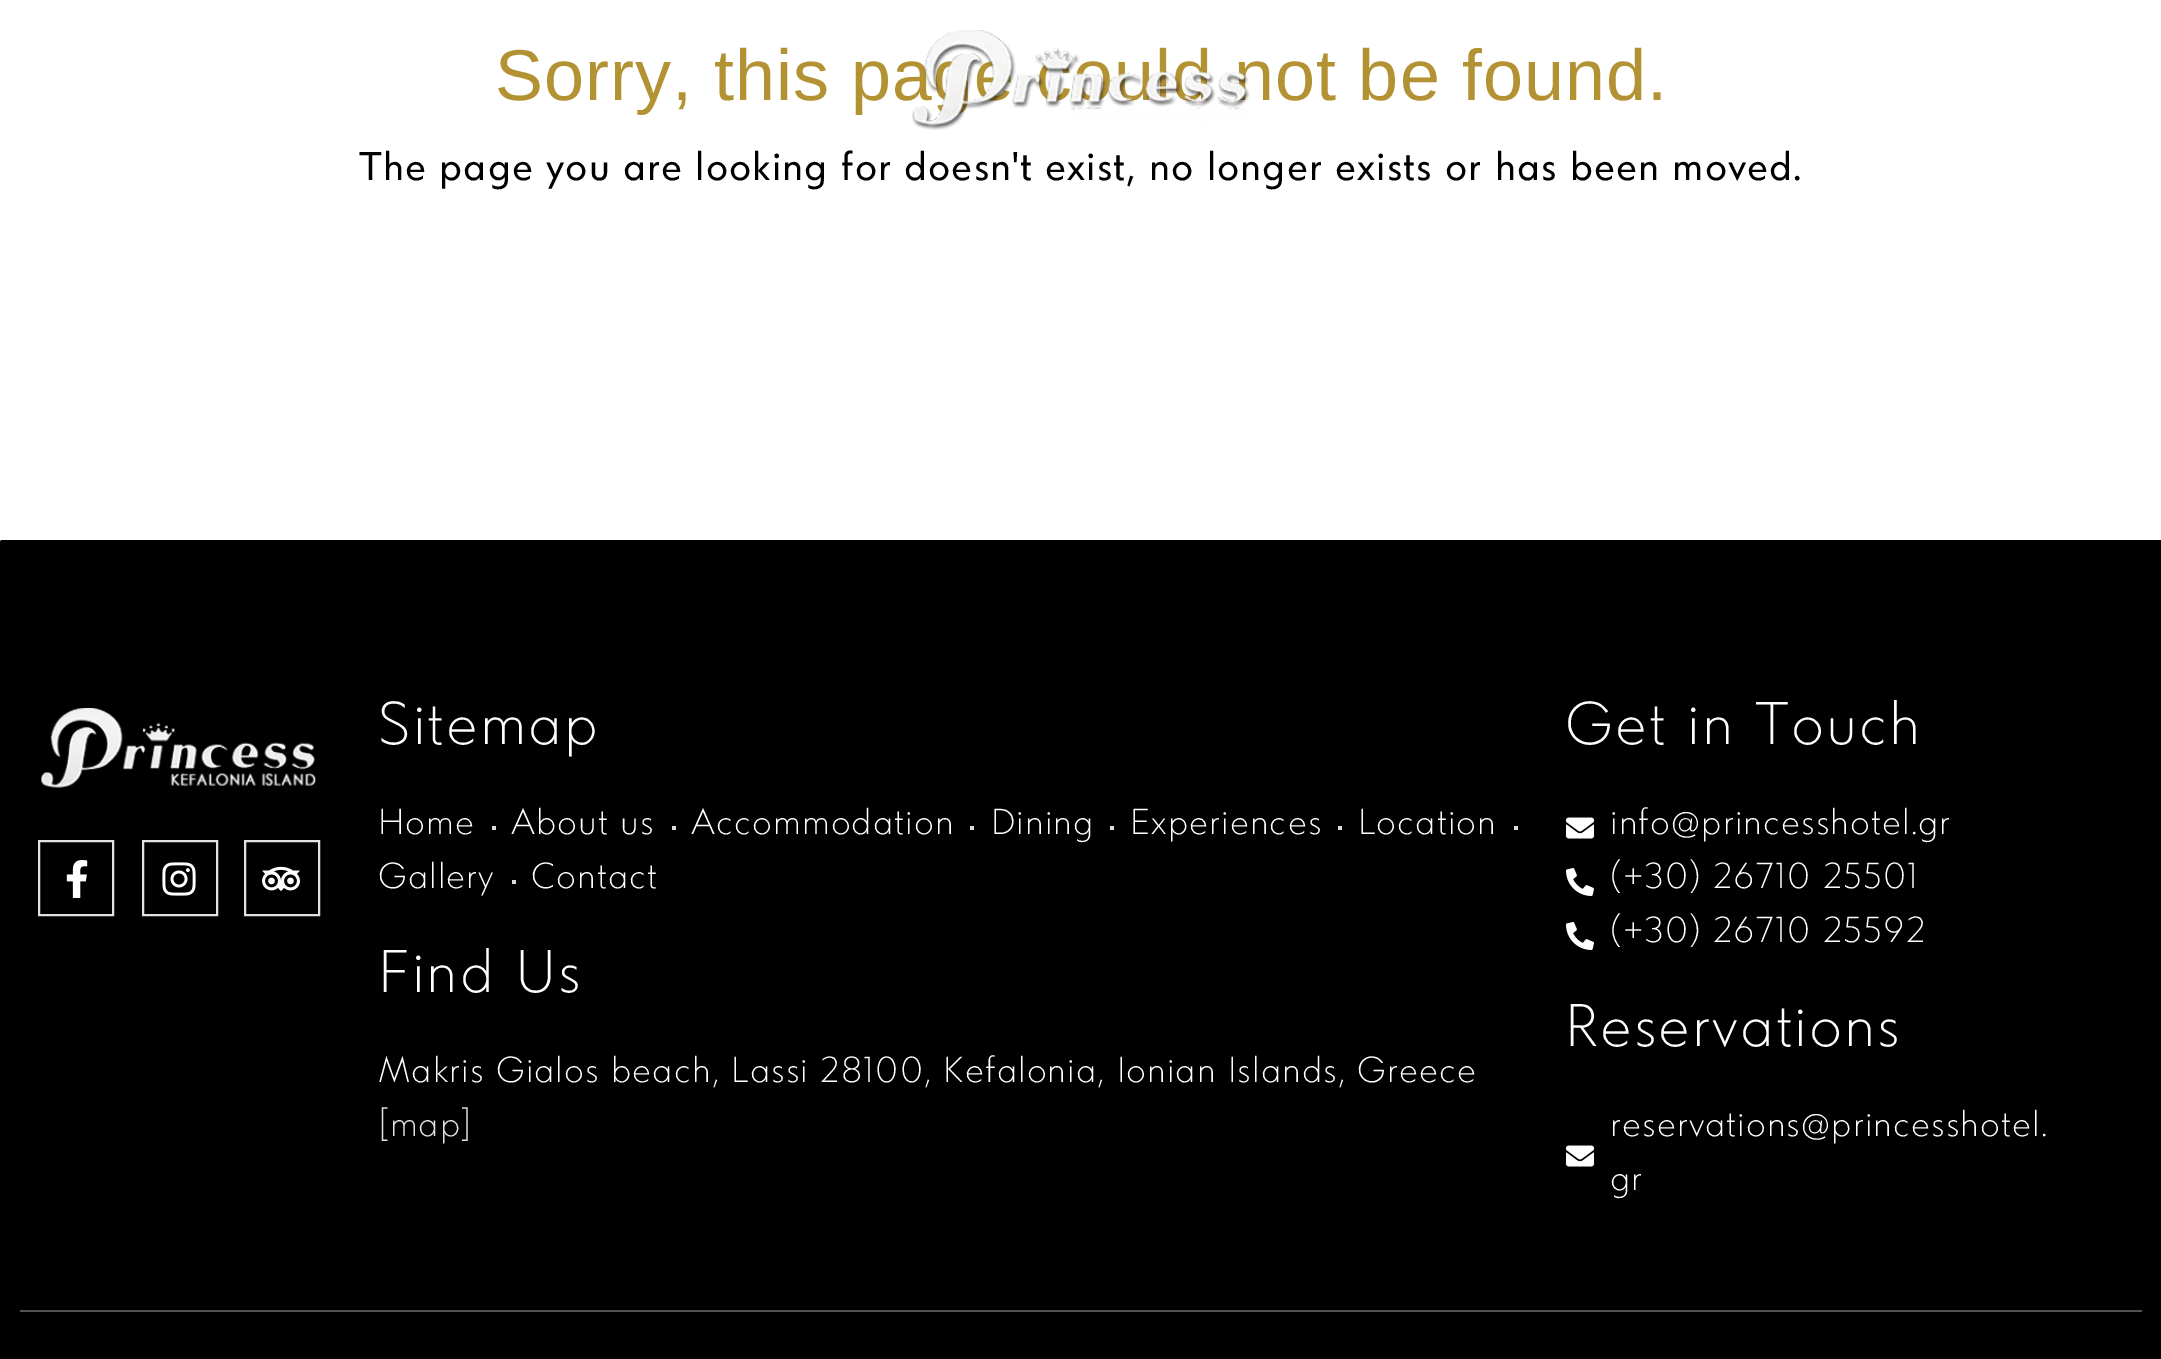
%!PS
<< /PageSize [2161 1359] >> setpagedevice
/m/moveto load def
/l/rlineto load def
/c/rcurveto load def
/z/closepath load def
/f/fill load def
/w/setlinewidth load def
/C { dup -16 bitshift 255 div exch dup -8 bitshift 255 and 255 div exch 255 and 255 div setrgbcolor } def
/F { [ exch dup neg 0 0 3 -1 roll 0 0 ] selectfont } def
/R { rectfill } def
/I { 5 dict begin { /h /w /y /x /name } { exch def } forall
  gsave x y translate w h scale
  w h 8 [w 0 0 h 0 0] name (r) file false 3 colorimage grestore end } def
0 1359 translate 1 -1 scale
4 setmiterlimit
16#FFFFFF C
0 0 2161 1359 R
/LiberationSans-Regular 72 F
16#B39233 C
495 100 m 1 0 (Sorry, this page could not be found.) ashow
(1.rgb) 912 30 338 100 I
/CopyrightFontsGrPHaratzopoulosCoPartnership-Regular 40 F
16#000000 C
359 180 m 1 0 (The page you are looking for doesn't exist, no longer exists or has been moved.) ashow
2 540 m 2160 0 l 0 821 l -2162 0 l 0 -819 l 0 -1 1 -2 2 -2 c z f
(2.rgb) 41 708 275 80 I
16#E2E2E2 C
2 w
39 841 74 74 rectstroke
(3.rgb) 66 860 22 38 I
143 841 74 74 rectstroke
(4.rgb) 162 862 34 34 I
245 841 74 74 rectstroke
(5.rgb) 262 866 38 25 I
/CopyrightFontsGrPHaratzopoulosCoPartnership-Light 60 F
16#FFFFFF C
378 744 m 2 0 (Sitemap) ashow
/CopyrightFontsGrPHaratzopoulosCoPartnership-Light 36 F
378 834 m 1 0 (Home) ashow
16#DDDDDD C
492 826 4 4 R
16#FFFFFF C
511 834 m 1 0 (About us) ashow
16#DDDDDD C
672 826 4 4 R
16#FFFFFF C
691 834 m 1 0 (Accommodation) ashow
16#DDDDDD C
970 826 4 4 R
16#FFFFFF C
991 834 m 1 0 (Dining) ashow
16#DDDDDD C
1110 826 4 4 R
16#FFFFFF C
1130 834 m 1 0 (Experiences) ashow
16#DDDDDD C
1338 826 4 4 R
16#FFFFFF C
1358 834 m 1 0 (Location) ashow
16#DDDDDD C
1514 826 4 4 R
16#FFFFFF C
378 888 m 1 0 (Gallery) ashow
16#DDDDDD C
512 880 4 4 R
16#FFFFFF C
531 888 m 1 0 (Contact) ashow
/CopyrightFontsGrPHaratzopoulosCoPartnership-Light 60 F
378 992 m 2 0 (Find Us) ashow
/CopyrightFontsGrPHaratzopoulosCoPartnership-Light 36 F
378 1082 m 1 0 (Makris Gialos beach, Lassi 28100, Kefalonia, Ionian Islands, Greece) ashow
16#E2E2E2 C
378 1136 m 1 0 ([map]) ashow
/CopyrightFontsGrPHaratzopoulosCoPartnership-Light 60 F
16#FFFFFF C
1565 744 m 2 0 (Get in Touch) ashow
(6.rgb) 1566 817 28 22 I
/CopyrightFontsGrPHaratzopoulosCoPartnership-Light 36 F
1610 834 m 1 0 (info@princesshotel.gr) ashow
(7.rgb) 1566 868 28 28 I
1610 888 m 1 0 (\(+30\) 26710 25501) ashow
(7.rgb) 1566 922 28 28 I
1610 942 m 1 0 (\(+30\) 26710 25592) ashow
/CopyrightFontsGrPHaratzopoulosCoPartnership-Light 60 F
1565 1046 m 2 0 (Reservations) ashow
(6.rgb) 1566 1145 28 22 I
/CopyrightFontsGrPHaratzopoulosCoPartnership-Light 36 F
1610 1136 m 1 0 (reservations@princesshotel.) ashow
1610 1190 m 1 0 (gr) ashow
16#525252 C
20 1310 2122 2 R
showpage
